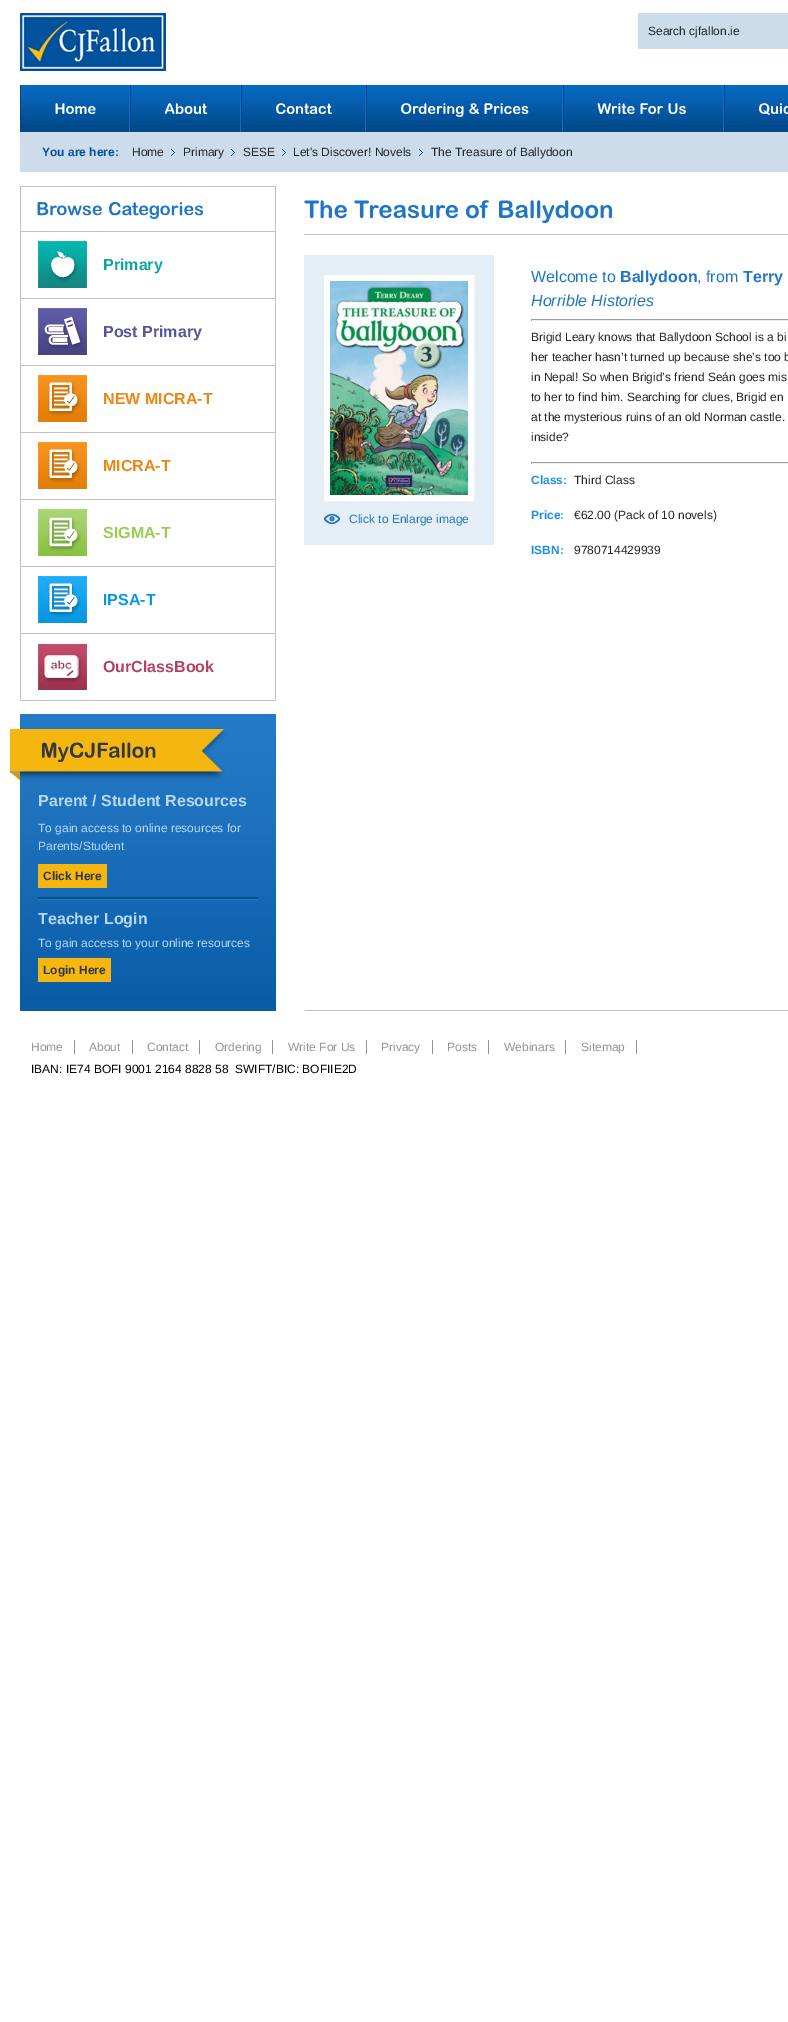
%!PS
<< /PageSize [788 2022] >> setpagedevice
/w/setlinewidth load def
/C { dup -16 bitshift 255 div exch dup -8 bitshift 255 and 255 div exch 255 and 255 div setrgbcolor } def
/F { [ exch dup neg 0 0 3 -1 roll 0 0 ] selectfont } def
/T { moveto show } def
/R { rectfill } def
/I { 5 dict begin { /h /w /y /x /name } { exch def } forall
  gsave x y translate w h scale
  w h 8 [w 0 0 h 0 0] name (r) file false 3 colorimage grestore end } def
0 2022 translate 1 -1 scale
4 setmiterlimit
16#FFFFFF C
0 0 788 2022 R
(1.rgb) 20 13 146 58 I
16#CCDCEB C
638 13 150 36 R
/LiberationSans-Regular 12 F
16#21262A C
(Search cjfallon.ie) 648 35 T
16#004A8B C
21 125 108 7 R
(2.rgb) 21 85 108 40 I
16#0A6EC6 C
129 85 1 47 R
16#034581 C
20 85 1 47 R
(3.rgb) 55 103 41 11 I
16#004A8B C
131 125 109 7 R
(4.rgb) 131 85 109 40 I
16#0A6EC6 C
240 85 1 47 R
16#034581 C
130 85 1 47 R
(5.rgb) 164 103 44 11 I
16#004A8B C
242 125 123 7 R
(6.rgb) 242 85 123 40 I
16#0A6EC6 C
365 85 1 47 R
16#034581 C
241 85 1 47 R
(7.rgb) 276 103 56 11 I
16#004A8B C
367 125 195 7 R
(8.rgb) 367 85 195 40 I
16#0A6EC6 C
562 85 1 47 R
16#034581 C
366 85 1 47 R
(9.rgb) 401 103 63 14 I
(10.rgb) 469 103 11 11 I
(11.rgb) 484 103 45 11 I
16#004A8B C
564 125 159 7 R
(12.rgb) 564 85 159 40 I
16#0A6EC6 C
723 85 1 47 R
16#034581 C
563 85 1 47 R
(13.rgb) 597 103 38 11 I
(14.rgb) 640 103 23 11 I
(15.rgb) 668 103 18 11 I
16#004A8B C
725 125 63 7 R
(16.rgb) 725 85 63 40 I
16#034581 C
724 85 1 47 R
(17.rgb) 759 103 29 12 I
16#CCDCEB C
20 132 768 40 R
/LiberationSans-Bold 12 F
16#00529B C
(You are here:) 42 156 T
/LiberationSans-Regular 12 F
16#21262A C
(Home) 132 156 T
(18.rgb) 171 149 4 7 I
(Primary) 183 156 T
(18.rgb) 231 149 4 7 I
(SESE) 243 156 T
(18.rgb) 282 149 4 7 I
(Let's Discover! Novels) 293 156 T
(18.rgb) 419 149 4 7 I
(The Treasure of Ballydoon) 431 156 T
16#C0C0C0 C
305 1010 483 1 R
16#BFBFBF C
20 186 256 1 R
275 186 1 515 R
20 186 1 515 R
21 231 254 1 R
(19.rgb) 37 202 65 14 I
(20.rgb) 109 202 95 17 I
(21.rgb) 38 241 49 47 I
21 298 254 1 R
/LiberationSans-Bold 16 F
16#08A7A2 C
(Primary) 103 270 T
(22.rgb) 38 308 49 47 I
16#BFBFBF C
21 365 254 1 R
16#57549B C
(Post Primary) 103 337 T
(23.rgb) 38 375 49 47 I
16#BFBFBF C
21 432 254 1 R
16#EC8713 C
(NEW MICRA-T) 103 404 T
(23.rgb) 38 442 49 47 I
16#BFBFBF C
21 499 254 1 R
16#EC8713 C
(MICRA-T) 103 471 T
(24.rgb) 38 509 49 47 I
16#BFBFBF C
21 566 254 1 R
16#9ACB56 C
(SIGMA-T) 103 538 T
(25.rgb) 38 576 49 47 I
16#BFBFBF C
21 633 254 1 R
16#0798E2 C
(IPSA-T) 103 605 T
(26.rgb) 38 644 49 46 I
16#BFBFBF C
21 700 254 1 R
16#B34260 C
(OurClassBook) 103 672 T
(27.rgb) 20 714 256 297 I
(28.rgb) 10 727 216 53 I
(29.rgb) 41 742 115 20 I
(30.rgb) 10 773 10 8 I
16#B7D9F7 C
(Parent / Student Resources) 38 806 T
/LiberationSans-Regular 12 F
(To gain access to online resources for) 38 832 T
(Parents/Student) 38 850 T
16#F5B70F C
38 864 69 24 R
/LiberationSans-Bold 12 F
16#323743 C
(Click Here) 43 880 T
16#094B87 C
38 897 220 2 R
16#1382D3 C
38 899 220 1 R
/LiberationSans-Bold 16 F
16#B7D9F7 C
(Teacher Login) 38 924 T
/LiberationSans-Regular 12 F
(To gain access to your online resources) 38 947 T
16#F5B70F C
38 958 73 24 R
/LiberationSans-Bold 12 F
16#323743 C
(Login Here) 43 974 T
16#C0C0C0 C
304 234 484 1 R
(31.rgb) 304 200 43 19 I
(32.rgb) 354 200 104 19 I
(33.rgb) 466 200 23 19 I
(34.rgb) 499 200 114 23 I
16#E5EEF5 C
304 255 190 290 R
16#FFFFFF C
6 w
327 278 144 220 rectstroke
(35.rgb) 330 281 138 214 I
(36.rgb) 324 514 16 10 I
/LiberationSans-Regular 12 F
16#2275C3 C
(Click to Enlarge image) 349 523 T
/LiberationSans-Regular 16 F
(Welcome to) 531 282 T
/LiberationSans-Bold 16 F
(Ballydoon) 620 282 T
/LiberationSans-Regular 16 F
(, from) 697 282 T
/LiberationSans-Bold 16 F
(Terry) 743 282 T
/LiberationSans-Italic 16 F
(Horrible Histories) 531 306 T
16#9F9F9F C
531 319 257 1 R
16#EEEEEE C
531 320 257 1 R
16#9F9F9F C
531 319 1 2 R
/LiberationSans-Regular 12 F
16#21262A C
(Brigid Leary knows that Ballydoon School is a bi) 531 341 T
(her teacher hasn’t turned up because she’s too b) 531 361 T
(in Nepal! So when Brigid’s friend Seán goes mis) 531 381 T
(to her to find him. Searching for clues, Brigid en) 531 401 T
(at the mysterious ruins of an old Norman castle.) 531 421 T
(inside?) 531 441 T
16#9F9F9F C
531 462 257 1 R
16#EEEEEE C
531 463 257 1 R
16#9F9F9F C
531 462 1 2 R
/LiberationSans-Bold 12 F
16#208FE1 C
(Class:) 531 484 T
/LiberationSans-Regular 12 F
16#21262A C
(Third Class) 574 484 T
/LiberationSans-Bold 12 F
16#208FE1 C
(Price:) 531 519 T
/LiberationSans-Regular 12 F
16#21262A C
(€62.00 \(Pack of 10 novels\)) 574 519 T
/LiberationSans-Bold 12 F
16#208FE1 C
(ISBN:) 531 554 T
/LiberationSans-Regular 12 F
16#21262A C
(9780714429939) 574 554 T
16#949494 C
(Home) 31 1051 T
74 1040 1 14 R
(About) 89 1051 T
132 1040 1 14 R
(Contact) 147 1051 T
199 1040 1 14 R
(Ordering) 215 1051 T
272 1040 1 14 R
(Write For Us) 288 1051 T
366 1040 1 14 R
(Privacy) 381 1051 T
432 1040 1 14 R
(Posts) 447 1051 T
488 1040 1 14 R
(Webinars) 504 1051 T
565 1040 1 14 R
(Sitemap) 581 1051 T
636 1040 1 14 R
16#000000 C
(IBAN: IE74 BOFI 9001 2164 8828 58  SWIFT/BIC: BOFIIE2D) 31 1073 T
showpage
